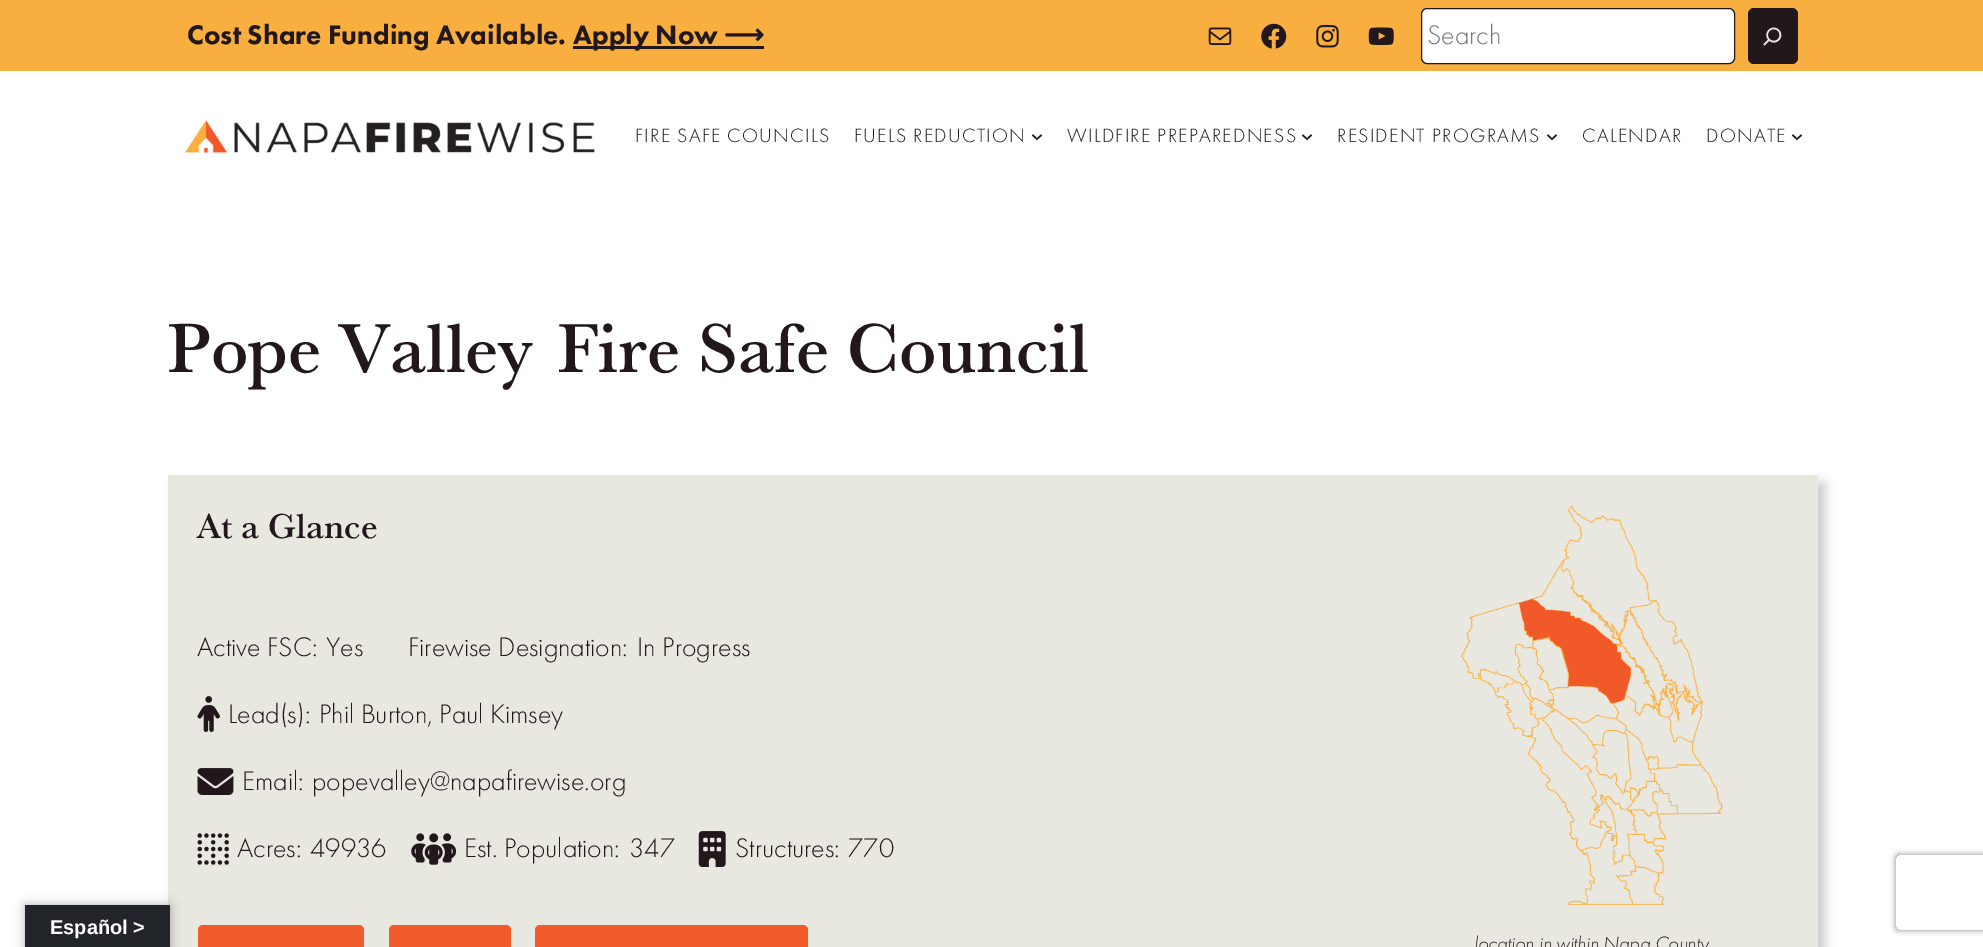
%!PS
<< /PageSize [1983 947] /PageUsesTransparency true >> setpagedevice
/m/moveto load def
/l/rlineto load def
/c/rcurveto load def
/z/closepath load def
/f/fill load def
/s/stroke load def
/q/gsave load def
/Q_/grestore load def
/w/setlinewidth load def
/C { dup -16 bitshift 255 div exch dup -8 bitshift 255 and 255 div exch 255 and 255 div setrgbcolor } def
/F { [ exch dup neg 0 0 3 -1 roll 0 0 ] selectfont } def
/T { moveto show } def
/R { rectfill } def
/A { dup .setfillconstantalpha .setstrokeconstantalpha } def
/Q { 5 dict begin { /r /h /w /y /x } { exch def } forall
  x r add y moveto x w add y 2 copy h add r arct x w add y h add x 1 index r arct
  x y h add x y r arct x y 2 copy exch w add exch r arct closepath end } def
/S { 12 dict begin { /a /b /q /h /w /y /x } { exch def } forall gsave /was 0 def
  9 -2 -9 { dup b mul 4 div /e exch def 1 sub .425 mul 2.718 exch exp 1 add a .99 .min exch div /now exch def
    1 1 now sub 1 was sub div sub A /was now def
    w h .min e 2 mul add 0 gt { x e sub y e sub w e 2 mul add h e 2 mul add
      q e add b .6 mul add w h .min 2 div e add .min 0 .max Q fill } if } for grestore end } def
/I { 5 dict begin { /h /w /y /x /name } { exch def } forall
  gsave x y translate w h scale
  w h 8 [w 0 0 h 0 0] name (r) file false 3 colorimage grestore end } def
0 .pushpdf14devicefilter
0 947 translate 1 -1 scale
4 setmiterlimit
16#FFFFFF C
0 0 1983 947 R
16#000000 C
175 483 1650 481 0 5.5 .2 S
16#E8E8E1 C
168 475 1650 472 R
16#000000 C
25 905 145 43 0 5.5 .3 S
16#212529 C
25 905 145 42 R
/LiberationSans-Bold 20 F
16#FFFFFF C
(Español >) 50 934 T
16#F9AF40 C
0 0 1983 71 R
/FuturaPT-Black 27.9 F
16#22181C C
(Cost Share Funding Available.) 187 44 T
573 46 191 3 R
(Apply Now) 573 44 T
/DejaVuSans-Bold 27.9 F
(⟶) 724 44 T
(1.rgb) 1208 27 24 18 I
(2.rgb) 1261 23 26 26 I
(3.rgb) 1316 25 23 23 I
(4.rgb) 1368 27 26 19 I
16#FFFFFF C
1421.5 8.5 313 55 5.5 Q q f Q_
16#22181C C
s
/FuturaPT-Light 27.9 F
16#757575 C
(Search) 1427 44 T
16#22181C C
1748 8 50 56 6 Q f
(5.rgb) 1763 27 19 19 I
(6.rgb) 185 120 410 33 I
/FuturaPT-Light 20 F
635 142 m 1.25 0 (FIRE SAFE COUNCILS) ashow
854 142 m 1.25 0 (FUELS REDUCTION) ashow
1.5 w
1032.5 135 m 4.5 4 l 4.5 -4 l s
1067 142 m 1.25 0 (WILDFIRE PREPAREDNESS) ashow
1302.5 135 m 4.5 4 l 4.5 -4 l s
1337 142 m 1.25 0 (RESIDENT PROGRAMS) ashow
1547.5 135 m 4.5 4 l 4.5 -4 l s
1582 142 m 1.25 0 (CALENDAR) ashow
1706 142 m 1.25 0 (DONATE) ashow
1792.5 135 m 4.5 4 l 4.5 -4 l s
/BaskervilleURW-Medium 71.75 F
(Pope Valley) 167 372 T
(Fire Safe Council) 557 372 T
/BaskervilleURW-Medium 36 F
(At a Glance) 197 538 T
/FuturaPT-Light 27.9 F
(Active FSC:) 197 656 T
(Yes) 326 656 T
(Firewise Designation:) 408 656 T
(In Progress) 637 656 T
(7.rgb) 197 696 23 36 I
(Lead\(s\):) 228 723 T
(Phil Burton, Paul Kimsey) 319 723 T
(8.rgb) 197 768 37 27 I
(Email:) 242 790 T
(popevalley@napafirewise.org) 312 790 T
(9.rgb) 197 833 32 32 I
(Acres:) 237 857 T
(49936) 310 857 T
(10.rgb) 411 833 46 32 I
(Est. Population:) 464 857 T
(347) 629 857 T
(11.rgb) 698 831 28 36 I
(Structures:) 735 857 T
(770) 848 857 T
16#F15A29 C
198 925 166 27 5 Q f
389 925 122 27 5 Q f
535 925 273 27 5 Q f
(12.rgb) 1460 505 263 400 I
/FuturaPT-LightItalic 20 F
16#22181C C
(location in within Napa County) 1474 950 T
q
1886 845 m 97 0 l 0 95 l -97 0 l z 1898.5 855 m 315 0 l 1.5 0 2.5 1 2.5 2.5 c 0 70 l 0 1.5 -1 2.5 -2.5 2.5 c -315 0 l -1.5 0 -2.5 -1 -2.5 -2.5 c 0 -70 l 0 -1.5 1 -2.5 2.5 -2.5 c z eoclip newpath
16#808080 C
1896 855 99 75 2.5 3 1 S
Q_
.poppdf14devicefilter showpage
